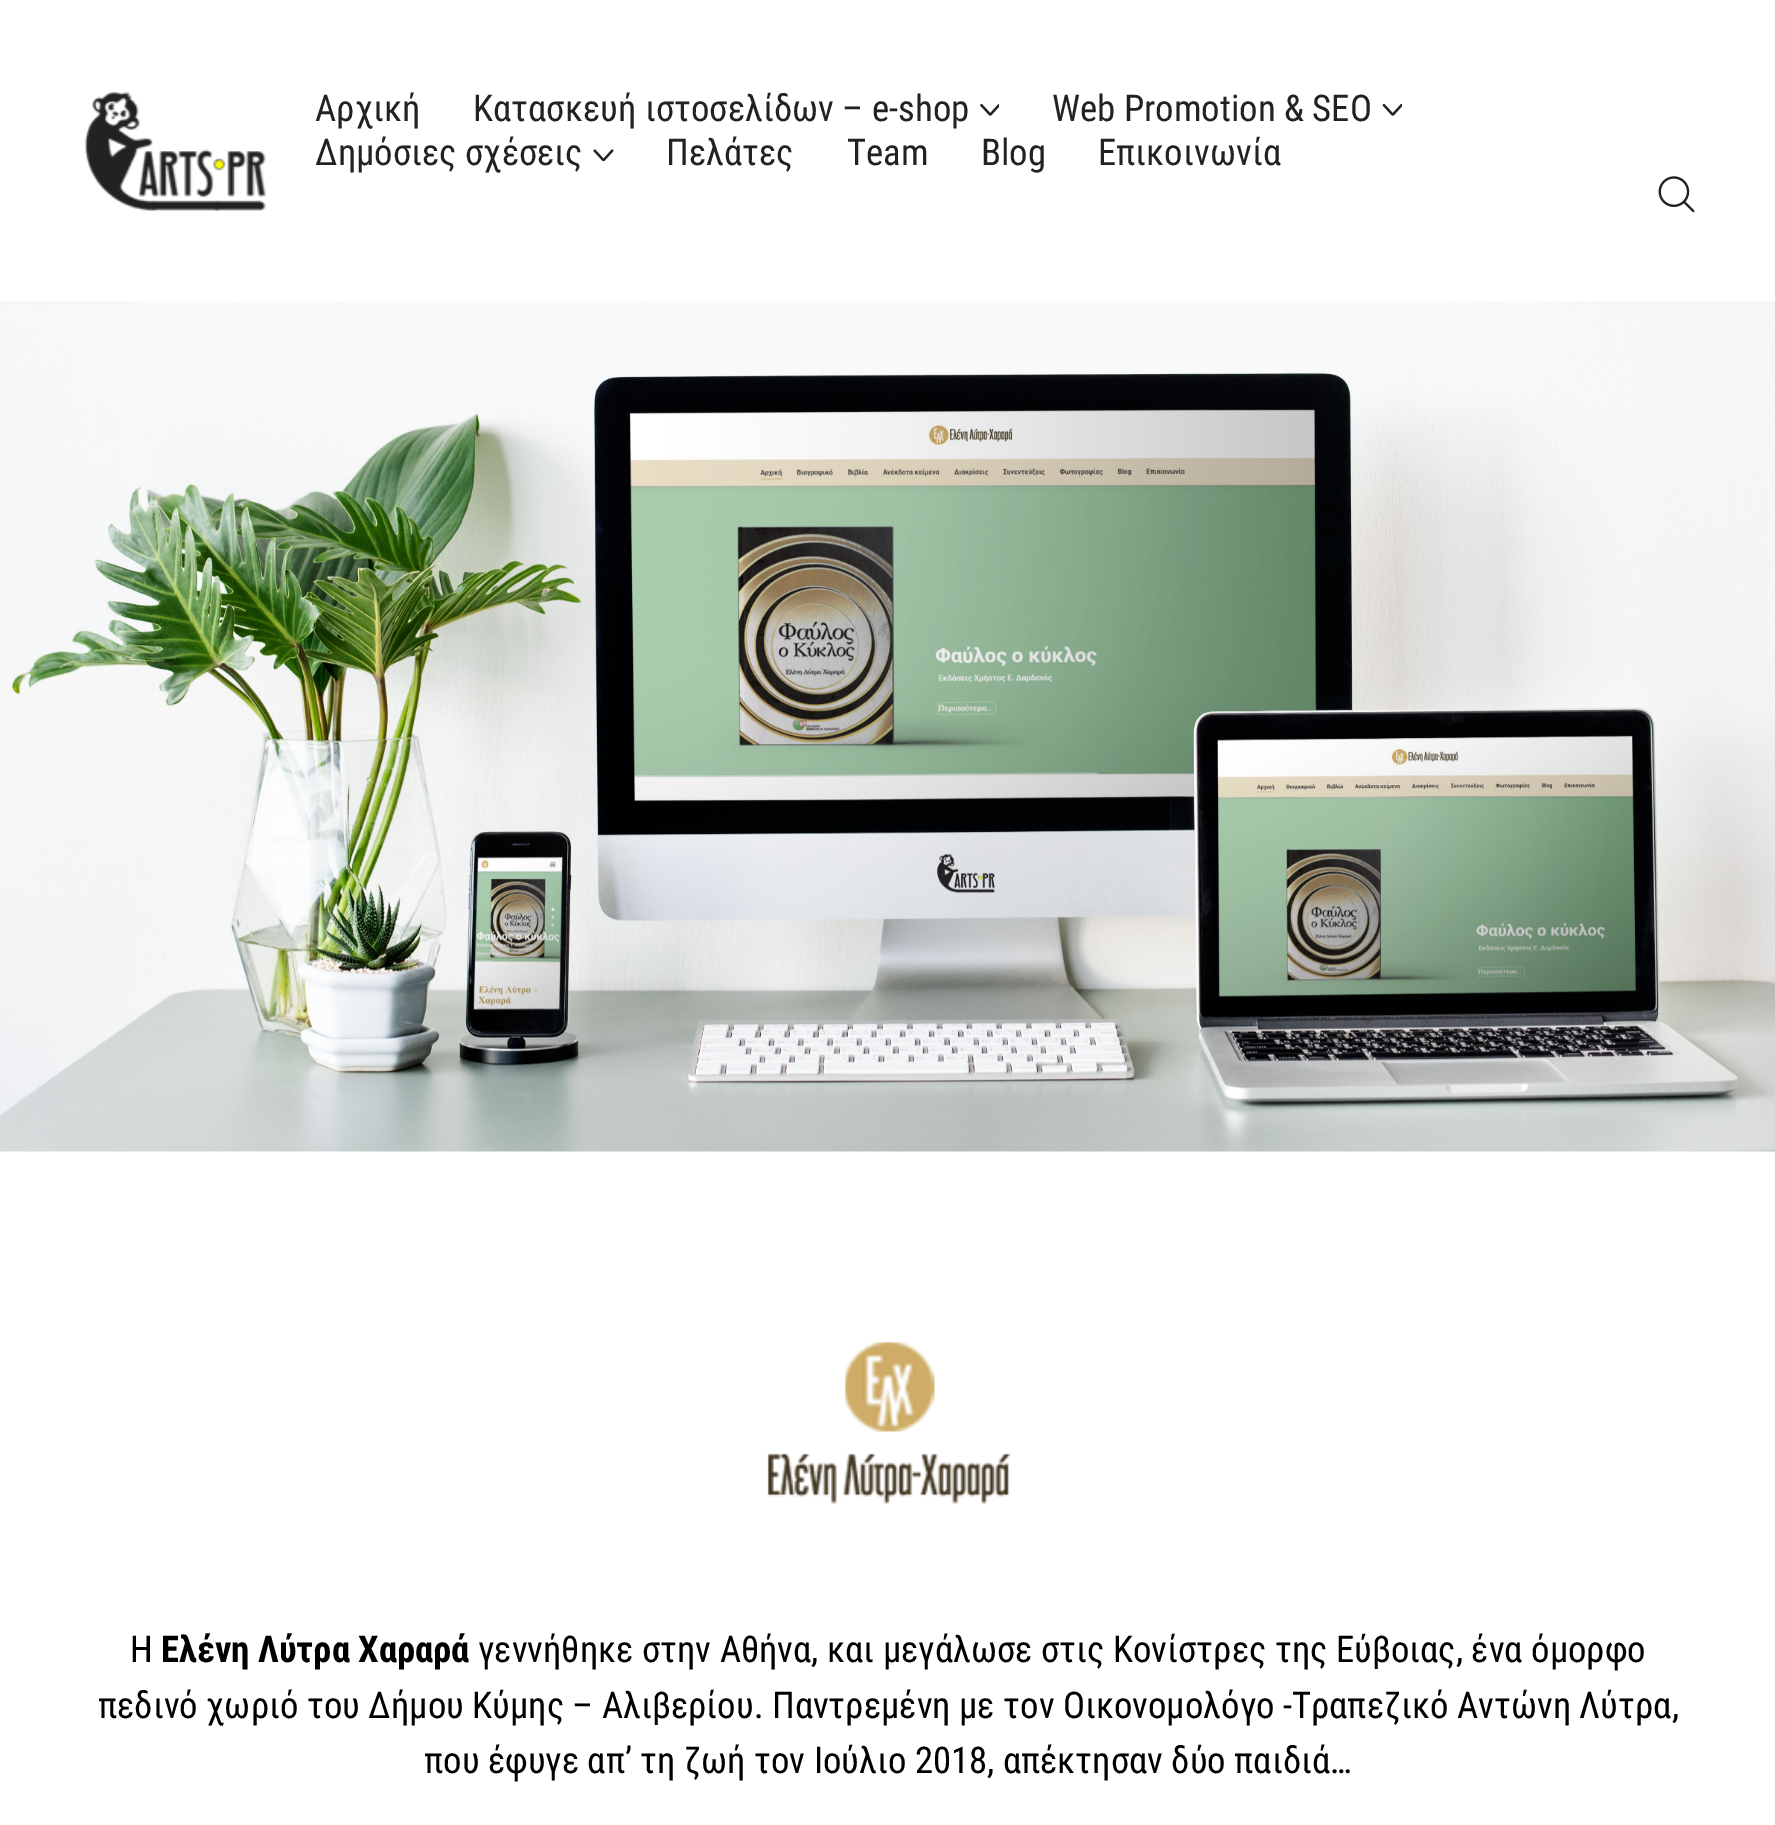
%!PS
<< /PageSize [1775 1825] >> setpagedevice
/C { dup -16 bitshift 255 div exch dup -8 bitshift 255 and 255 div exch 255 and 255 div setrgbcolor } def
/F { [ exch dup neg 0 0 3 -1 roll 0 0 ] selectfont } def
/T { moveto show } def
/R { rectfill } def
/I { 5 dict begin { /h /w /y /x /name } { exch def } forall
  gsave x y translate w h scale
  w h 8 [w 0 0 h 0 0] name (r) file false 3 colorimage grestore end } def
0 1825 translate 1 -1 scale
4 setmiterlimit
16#FFFFFF C
0 0 1775 1825 R
(1.rgb) 85 92 182 120 I
/RobotoCondensed-Regular 36.75 F
16#222222 C
(Αρχική) 315 121 T
(Κατασκευή ιστοσελίδων – e-shop) 473 121 T
(2.rgb) 980 103 19 13 I
(Web Promotion & SEO) 1052 121 T
(3.rgb) 1382 103 20 13 I
(Δημόσιες σχέσεις) 315 165 T
(4.rgb) 593 149 21 13 I
(Πελάτες) 666 165 T
(Team) 847 165 T
(Blog) 981 165 T
(Επικοινωνία) 1098 165 T
(5.rgb) 1658 176 37 37 I
(6.rgb) 0 301 1775 851 I
(7.rgb) 767 1341 244 163 I
16#000000 C
(Η) 130 1662 T
/RobotoCondensed-Bold 36.75 F
(Ελένη Λύτρα Χαραρά) 161 1662 T
/RobotoCondensed-Regular 36.75 F
(γεννήθηκε στην Αθήνα, και μεγάλωσε στις Κονίστρες της Εύβοιας, ένα όμορφο) 478 1662 T
(πεδινό χωριό του Δήμου Κύμης – Αλιβερίου. Παντρεμένη με τον Οικονομολόγο -Τραπεζικό Αντώνη Λύτρα,) 98 1718 T
(που έφυγε απ’ τη ζωή τον Ιούλιο 2018, απέκτησαν δύο παιδιά…) 424 1773 T
showpage
